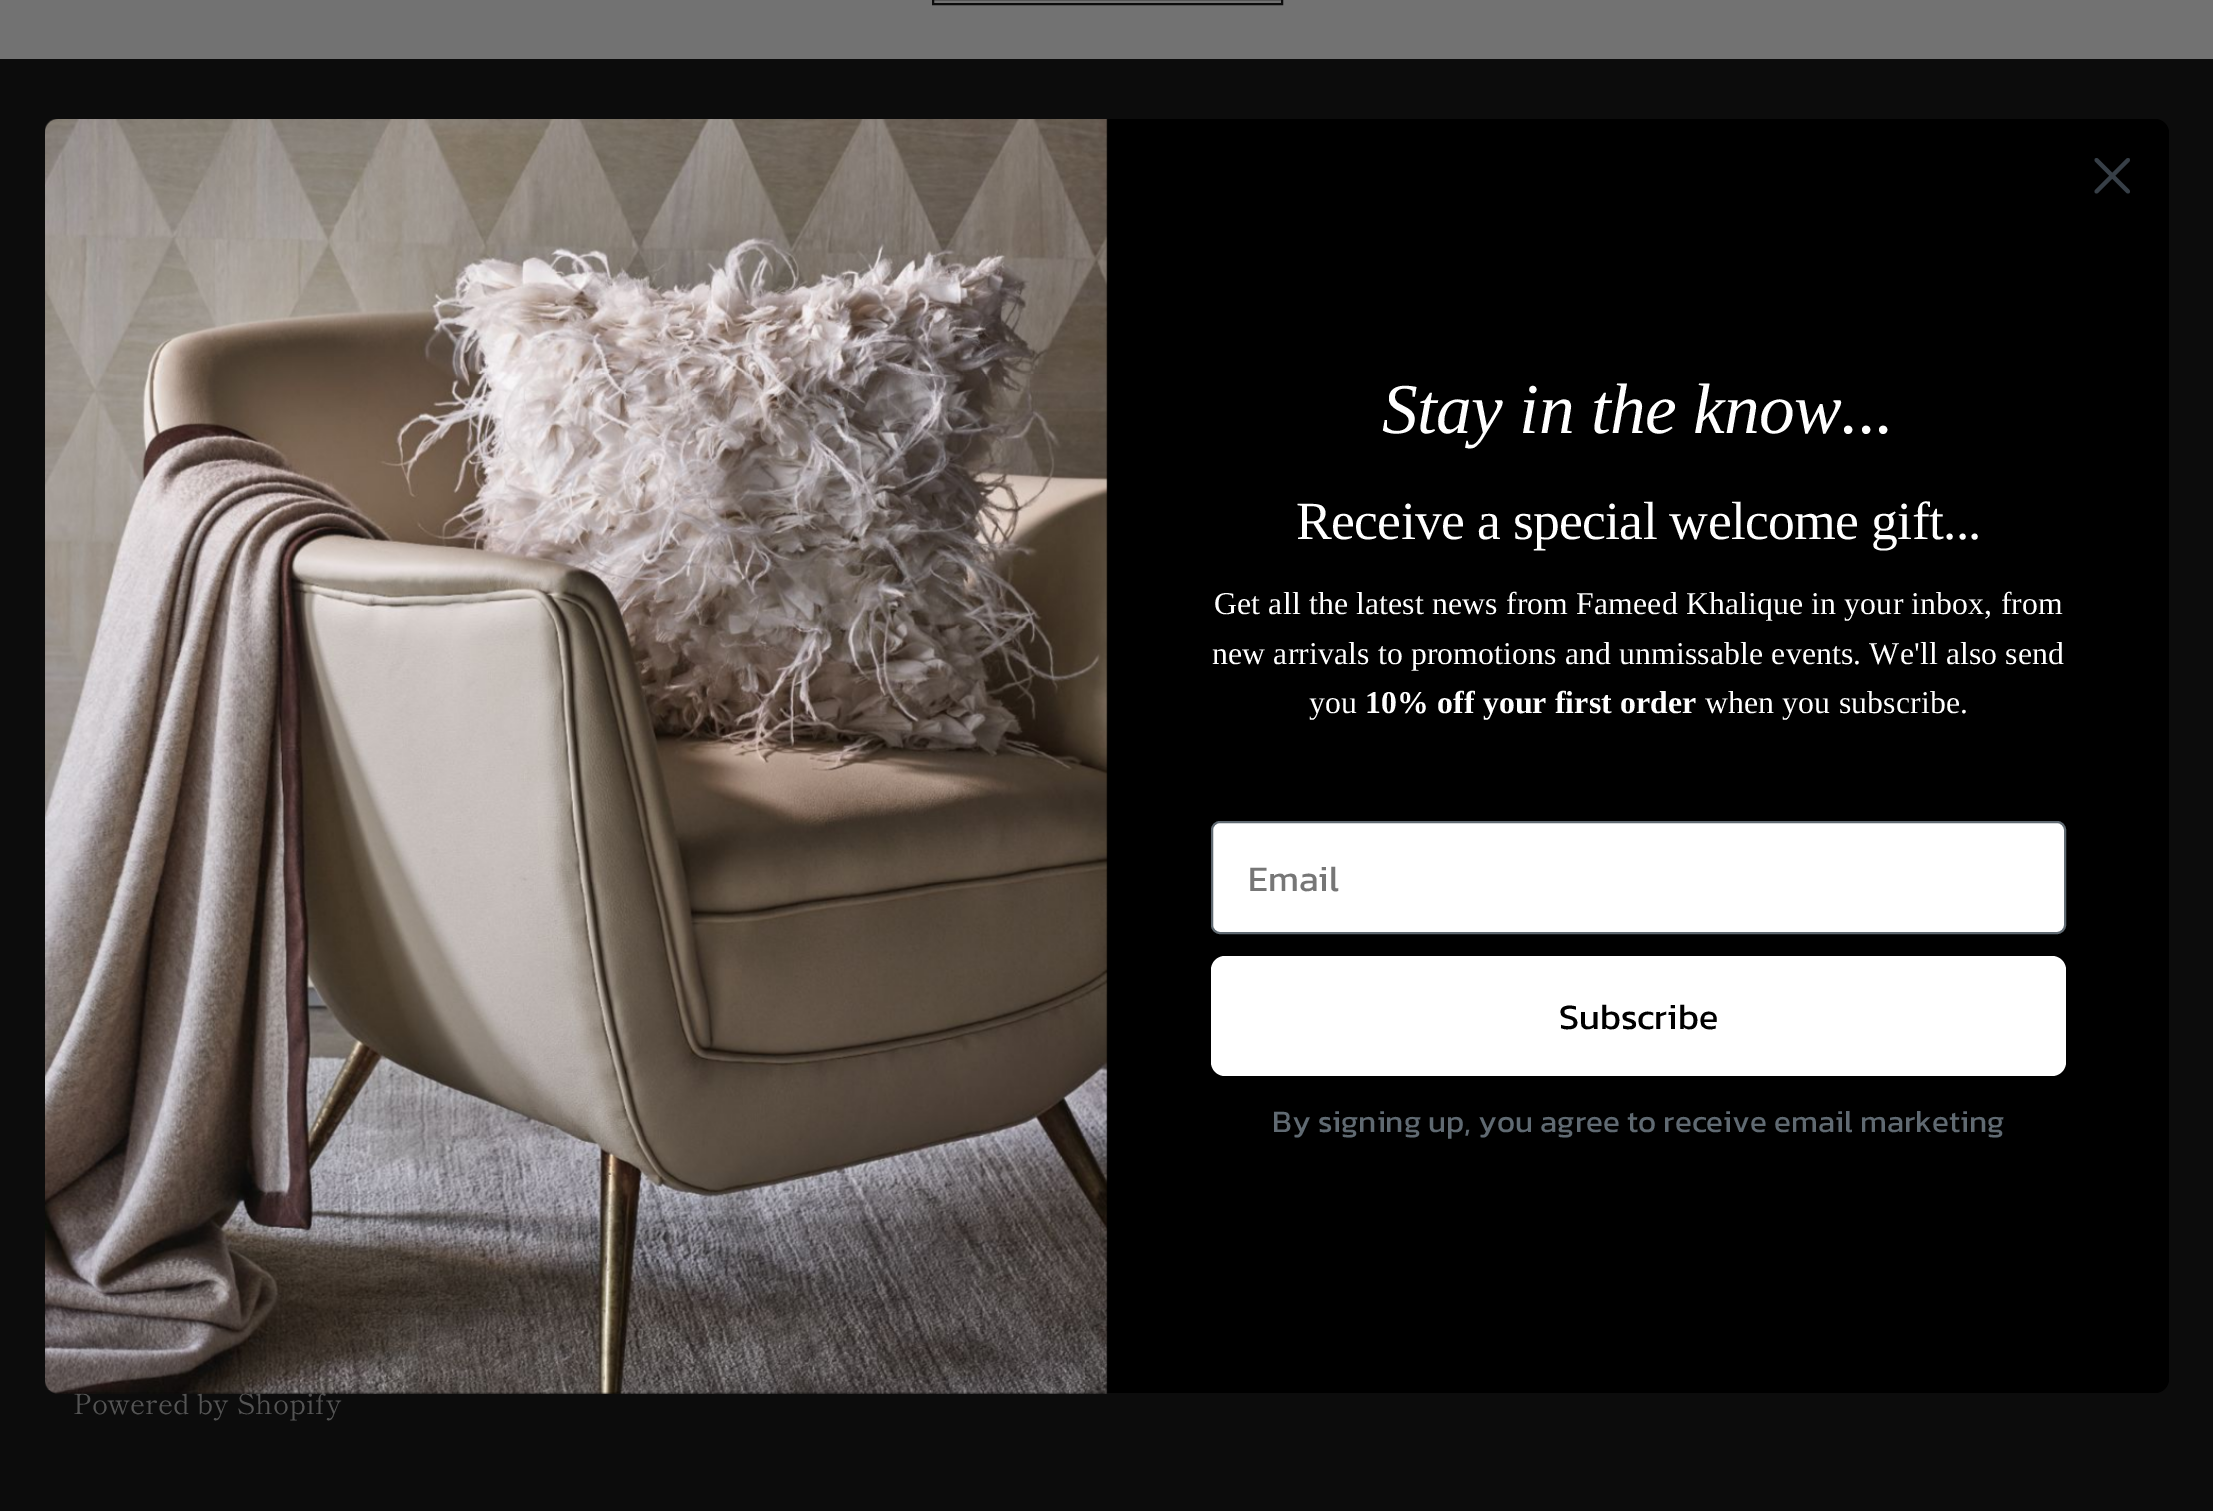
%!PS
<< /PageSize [2213 1511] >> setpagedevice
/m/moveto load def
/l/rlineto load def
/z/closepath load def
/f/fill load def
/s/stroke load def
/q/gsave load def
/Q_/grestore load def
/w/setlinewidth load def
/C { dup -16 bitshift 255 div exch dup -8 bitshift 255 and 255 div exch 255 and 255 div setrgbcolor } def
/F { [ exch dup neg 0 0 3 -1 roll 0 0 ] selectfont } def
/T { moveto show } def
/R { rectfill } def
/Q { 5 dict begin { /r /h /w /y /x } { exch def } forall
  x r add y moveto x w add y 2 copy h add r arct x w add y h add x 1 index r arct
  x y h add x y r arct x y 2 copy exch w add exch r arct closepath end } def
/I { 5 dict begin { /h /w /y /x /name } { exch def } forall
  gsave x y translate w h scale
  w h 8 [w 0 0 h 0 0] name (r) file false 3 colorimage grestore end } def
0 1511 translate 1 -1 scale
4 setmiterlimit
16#727272 C
0 0 2213 1511 R
16#0C0C0C C
0 59 2213 1452 R
16#000000 C
45 119 2124 1274 14 Q f
16#373F47 C
3.9 w
1 setlinecap
1 setlinejoin
2096.5 160 m 31.5 31.5 l 2096.5 191.5 m 31.5 -31.5 l z s
/ShipporiMincho-Regular 28 F
16#545454 C
73 1414 m .2 0 (Powered by Shopify) ashow
(1.rgb) 45 119 1063 1275 I
/LiberationSerif-Italic 71.5 F
16#FFFFFF C
1382 433 m -.7 0 (Stay in the know...) ashow
/LiberationSerif-Regular 53.7 F
1296 539 m -.7 0 (Receive a special welcome gift...) ashow
/LiberationSerif-Regular 31.75 F
1214 614 m .15 0 (Get all the latest news from Fameed Khalique in your inbox, from) ashow
1212 664 m -.1 0 32 .15 0 (new arrivals to promotions and unmissable events. We'll also send) awidthshow
1309 713 m .15 0 (you) ashow
/LiberationSerif-Bold 31.75 F
1365 713 m .15 0 (10% off your first order) ashow
/LiberationSerif-Regular 31.75 F
1705 713 m .15 0 (when you subscribe.) ashow
1212 822 853 111 8 Q q f Q_
16#606A72 C
2 w
0 setlinecap
0 setlinejoin
s
/Kanit-Regular 36 F
16#767676 C
(Email) 1248 891 T
16#FFFFFF C
1211 956 855 120 14 Q f
16#000000 C
(Subscribe) 1559 1029 T
/Kanit-Regular 31.3 F
16#606A72 C
(By signing up, you agree to receive email marketing) 1272 1132 T
16#0C0C0C C
933 -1 349 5 rectstroke
showpage
